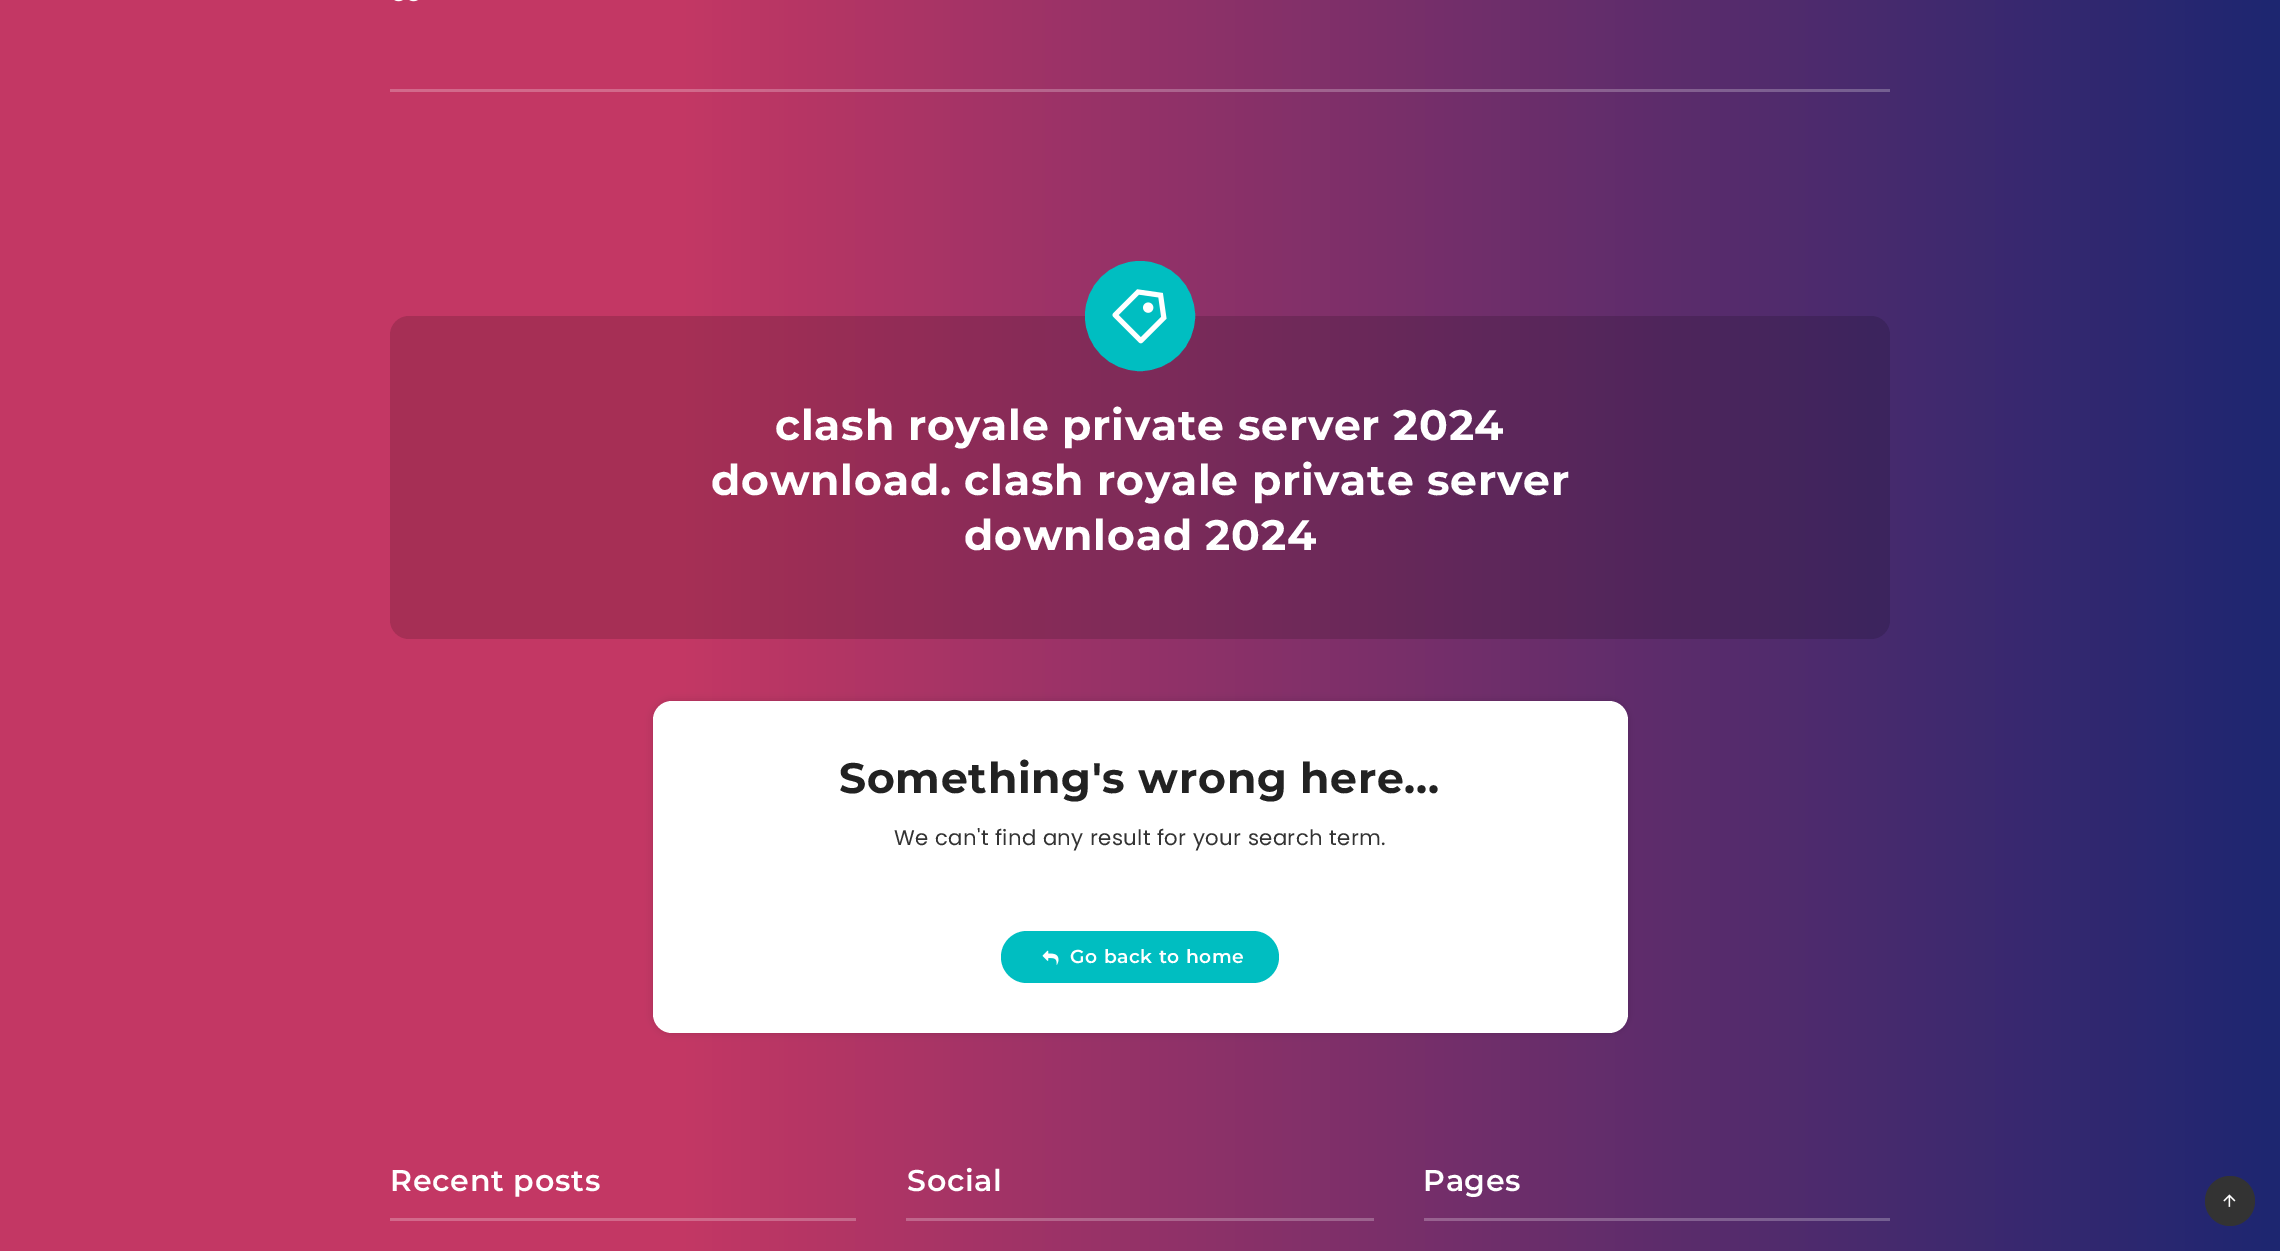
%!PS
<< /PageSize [2280 1251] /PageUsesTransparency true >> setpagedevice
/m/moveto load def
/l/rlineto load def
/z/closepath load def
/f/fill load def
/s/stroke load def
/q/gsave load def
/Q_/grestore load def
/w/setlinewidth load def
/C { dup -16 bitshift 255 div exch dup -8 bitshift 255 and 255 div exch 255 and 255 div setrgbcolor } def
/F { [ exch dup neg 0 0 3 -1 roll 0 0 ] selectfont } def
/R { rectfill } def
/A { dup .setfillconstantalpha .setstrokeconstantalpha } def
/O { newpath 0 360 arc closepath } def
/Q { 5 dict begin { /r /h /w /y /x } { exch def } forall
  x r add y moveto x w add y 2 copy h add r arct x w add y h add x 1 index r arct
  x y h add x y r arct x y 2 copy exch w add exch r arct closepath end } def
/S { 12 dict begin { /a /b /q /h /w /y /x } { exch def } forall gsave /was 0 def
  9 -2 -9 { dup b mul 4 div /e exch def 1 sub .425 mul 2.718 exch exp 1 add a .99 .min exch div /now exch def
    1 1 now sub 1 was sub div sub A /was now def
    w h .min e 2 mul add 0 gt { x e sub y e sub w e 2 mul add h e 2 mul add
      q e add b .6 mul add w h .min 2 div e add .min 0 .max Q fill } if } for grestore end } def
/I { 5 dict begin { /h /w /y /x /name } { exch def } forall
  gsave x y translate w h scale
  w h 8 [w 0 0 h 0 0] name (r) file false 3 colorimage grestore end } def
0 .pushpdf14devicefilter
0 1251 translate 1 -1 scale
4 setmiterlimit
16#FFFFFF C
0 0 2280 1251 R
q 0 0 m 2280 0 l 0 1251 l -2280 0 l z clip newpath
<< /ShadingType 2 /ColorSpace /DeviceRGB /Coords [0 626 2280 626] /Extend [true true] /Function << /FunctionType 3 /Domain [0 1] /Functions [<< /FunctionType 2 /Domain [0 1] /C0 [.765 .216 .392] /C1 [.765 .216 .392] /N 1 >> << /FunctionType 2 /Domain [0 1] /C0 [.765 .216 .392] /C1 [.114 .149 .443] /N 1 >>] /Bounds [.3] /Encode [0 1 0 1] >> >> shfill Q_
q 1424 1218 m 466 0 l 0 3 l -466 0 l z clip newpath
<< /ShadingType 2 /ColorSpace /DeviceRGB /Coords [0 626 2280 626] /Extend [true true] /Function << /FunctionType 3 /Domain [0 1] /Functions [<< /FunctionType 2 /Domain [0 1] /C0 [.824 .412 .545] /C1 [.824 .412 .545] /N 1 >> << /FunctionType 2 /Domain [0 1] /C0 [.824 .412 .545] /C1 [.337 .361 .584] /N 1 >>] /Bounds [.3] /Encode [0 1 0 1] >> >> shfill Q_
q 906 1218 m 468 0 l 0 3 l -468 0 l z clip newpath
<< /ShadingType 2 /ColorSpace /DeviceRGB /Coords [0 626 2280 626] /Extend [true true] /Function << /FunctionType 3 /Domain [0 1] /Functions [<< /FunctionType 2 /Domain [0 1] /C0 [.824 .412 .545] /C1 [.824 .412 .545] /N 1 >> << /FunctionType 2 /Domain [0 1] /C0 [.824 .412 .545] /C1 [.337 .361 .584] /N 1 >>] /Bounds [.3] /Encode [0 1 0 1] >> >> shfill Q_
q 390 1218 m 466 0 l 0 3 l -466 0 l z clip newpath
<< /ShadingType 2 /ColorSpace /DeviceRGB /Coords [0 626 2280 626] /Extend [true true] /Function << /FunctionType 3 /Domain [0 1] /Functions [<< /FunctionType 2 /Domain [0 1] /C0 [.824 .412 .545] /C1 [.824 .412 .545] /N 1 >> << /FunctionType 2 /Domain [0 1] /C0 [.824 .412 .545] /C1 [.337 .361 .584] /N 1 >>] /Bounds [.3] /Encode [0 1 0 1] >> >> shfill Q_
q 390 89 m 1500 0 l 0 3 l -1500 0 l z clip newpath
<< /ShadingType 2 /ColorSpace /DeviceRGB /Coords [0 626 2280 626] /Extend [true true] /Function << /FunctionType 3 /Domain [0 1] /Functions [<< /FunctionType 2 /Domain [0 1] /C0 [.824 .412 .545] /C1 [.824 .412 .545] /N 1 >> << /FunctionType 2 /Domain [0 1] /C0 [.824 .412 .545] /C1 [.337 .361 .584] /N 1 >>] /Bounds [.3] /Encode [0 1 0 1] >> >> shfill Q_
(1.rgb) 394 0 24 2 I
0.15 A
16#000000 C
390 316 1500 323 19 Q f
1 A
16#00BEC1 C
1140 316 52.5 O q f Q_
5 w
s
(2.rgb) 1112 289 55 55 I
/Montserrat-Bold 42.5 F
16#FFFFFF C
775 440 m .75 0 (clash royale private server 2024) ashow
711 495 m .75 0 (download. clash royale private server) ashow
964 550 m .75 0 (download 2024) ashow
16#000000 C
653 701 975 332 19 4 .15 S
16#FFFFFF C
653 701 975 332 19 Q f
16#222222 C
839 793 m .75 0 (Something's wrong here...) ashow
/Poppins-Regular 21.25 F
16#333333 C
894 845 m .4 0 (We can't find any result for your search term.) ashow
16#00BEC1 C
1001 931 278 52 26 Q f
(3.rgb) 1042 950 17 15 I
/Montserrat-SemiBold 18.75 F
16#FFFFFF C
1070 963 m .6 0 (Go back to home) ashow
/Montserrat-SemiBold 30 F
390 1191 m .75 0 (Recent posts) ashow
907 1191 m .75 0 (Social) ashow
1423 1191 m .75 0 (Pages) ashow
16#333333 C
2230 1201 25 O f
(4.rgb) 2223 1194 13 13 I
.poppdf14devicefilter showpage
